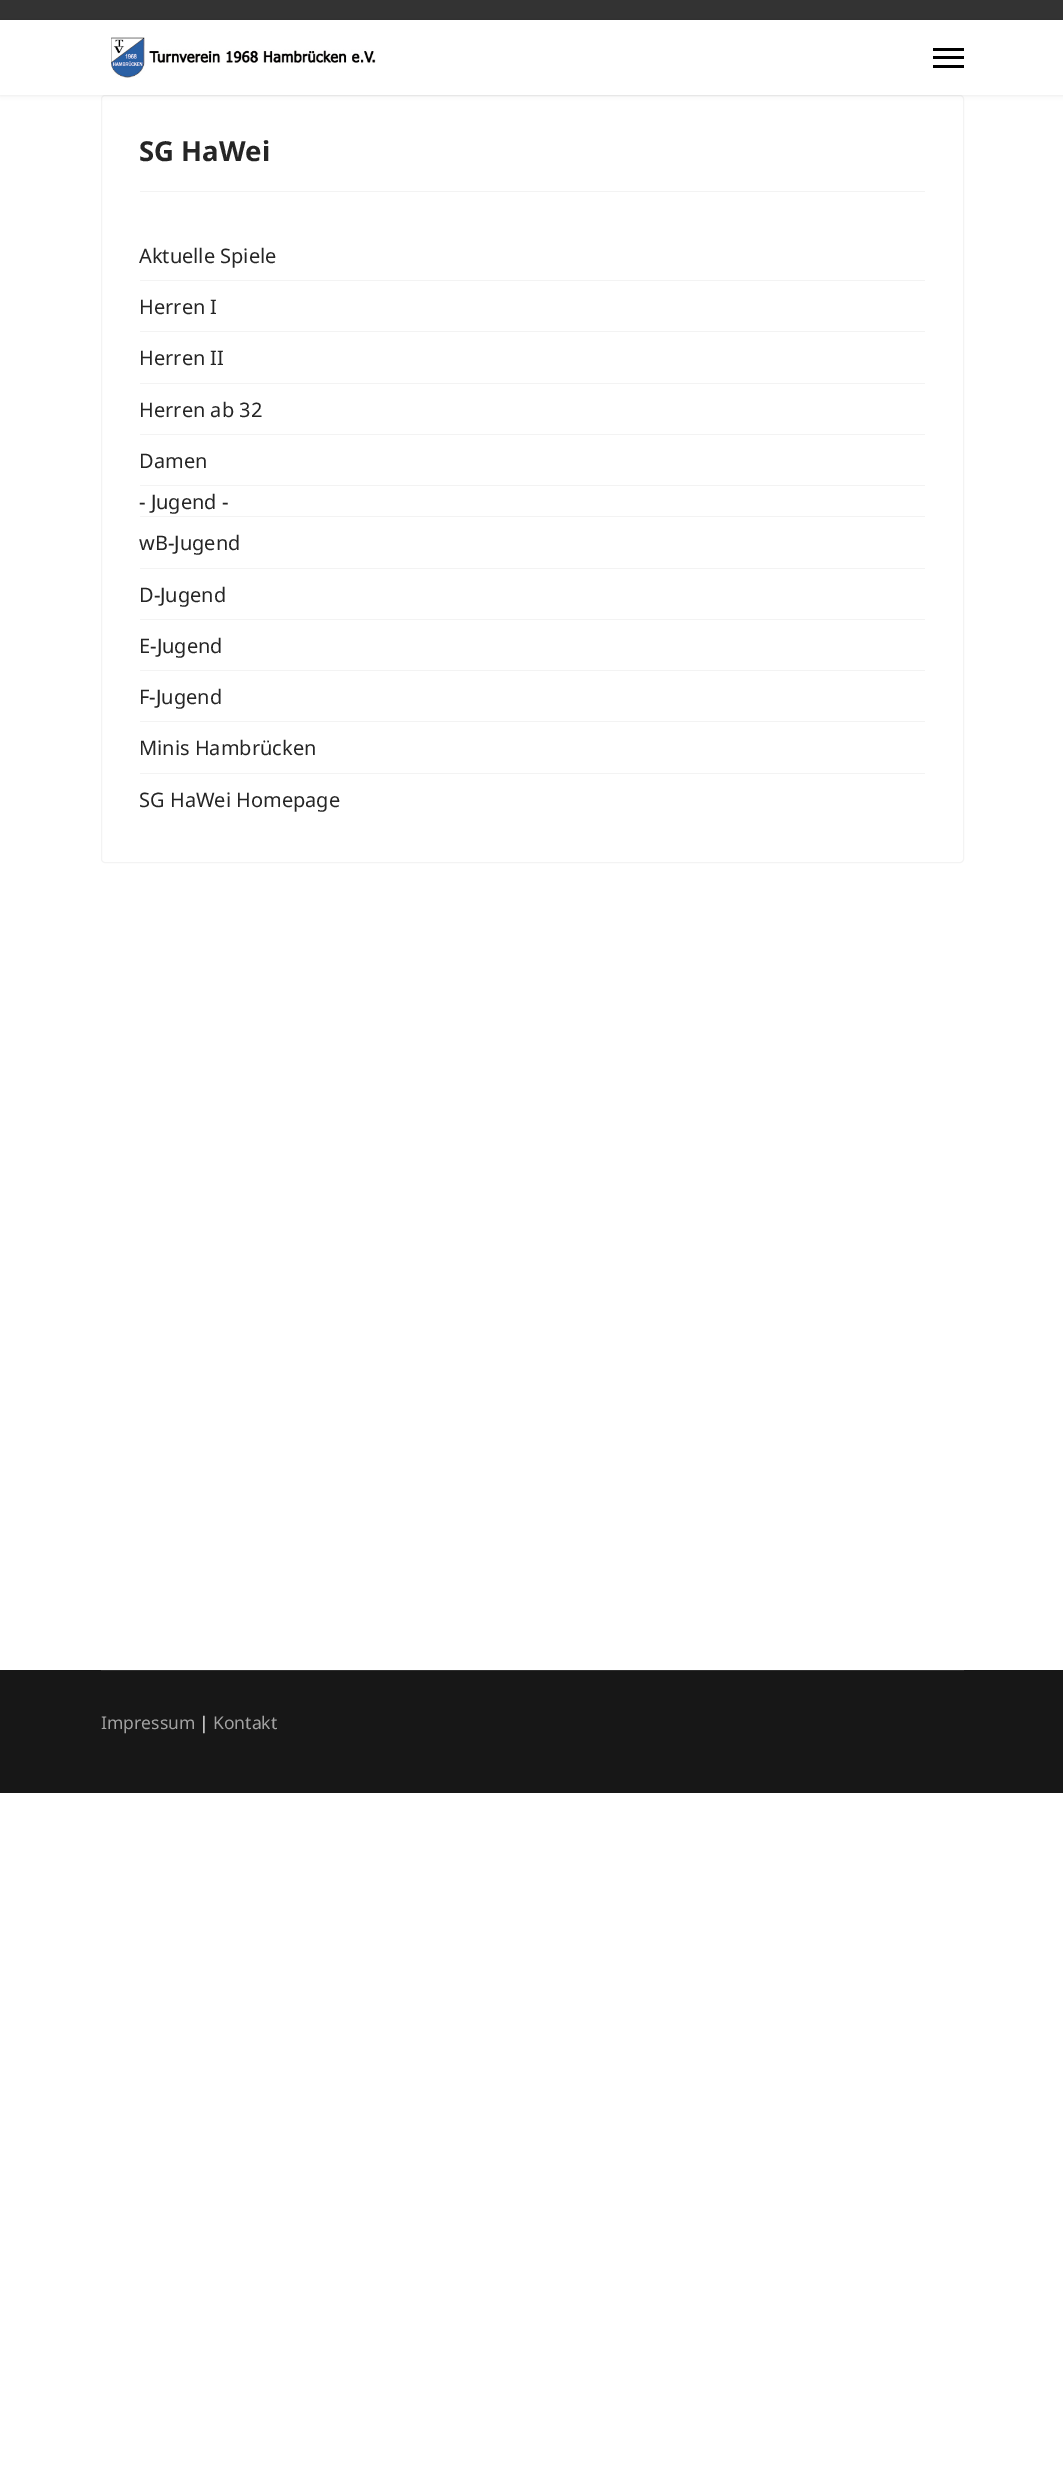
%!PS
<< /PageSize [1063 2480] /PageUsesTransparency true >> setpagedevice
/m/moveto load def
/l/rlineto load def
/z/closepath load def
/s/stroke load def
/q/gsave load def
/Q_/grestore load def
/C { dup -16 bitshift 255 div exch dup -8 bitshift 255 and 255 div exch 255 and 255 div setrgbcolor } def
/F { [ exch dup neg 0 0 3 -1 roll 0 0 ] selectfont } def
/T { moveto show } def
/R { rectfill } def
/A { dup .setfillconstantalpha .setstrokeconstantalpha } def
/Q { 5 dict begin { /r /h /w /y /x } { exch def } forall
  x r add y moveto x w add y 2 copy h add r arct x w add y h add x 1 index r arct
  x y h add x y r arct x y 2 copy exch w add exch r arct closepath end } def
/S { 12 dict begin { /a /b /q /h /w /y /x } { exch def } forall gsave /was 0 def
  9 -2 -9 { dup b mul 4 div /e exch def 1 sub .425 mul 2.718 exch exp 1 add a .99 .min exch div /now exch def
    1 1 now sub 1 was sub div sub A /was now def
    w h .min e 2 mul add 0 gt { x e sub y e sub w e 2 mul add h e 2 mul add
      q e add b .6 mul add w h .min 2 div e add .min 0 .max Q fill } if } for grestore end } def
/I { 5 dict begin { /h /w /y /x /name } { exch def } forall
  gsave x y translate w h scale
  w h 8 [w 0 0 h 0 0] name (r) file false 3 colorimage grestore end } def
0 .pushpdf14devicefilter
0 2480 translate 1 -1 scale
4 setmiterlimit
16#FFFFFF C
0 0 1063 2480 R
16#333333 C
0 0 1063 20 R
16#F3F3F3 C
101.5 95.5 862 767 3.5 Q s
q
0 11 m 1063 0 l 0 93 l -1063 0 l z 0 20 m 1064 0 l 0 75 l -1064 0 l z eoclip newpath
16#000000 C
0 20 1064 75 0 2.5 .1 S
Q_
(1.rgb) 111 37 265 41 I
16#000000 C
933 48 31 3 R
933 56 31 3 R
933 65 31 3 R
16#F3F3F3 C
140 191 785 1 R
/NotoSans-Bold 27.5 F
16#252525 C
(SG HaWei) 139 161 T
16#F3F3F3 C
140 280 785 1 R
/NotoSans-Regular 20 F
16#252525 C
(Aktuelle Spiele) 139 263 T
16#F3F3F3 C
140 331 785 1 R
16#252525 C
(Herren I) 139 314 T
16#F3F3F3 C
140 383 785 1 R
16#252525 C
(Herren II) 139 365 T
16#F3F3F3 C
140 434 785 1 R
16#252525 C
(Herren ab 32) 139 417 T
16#F3F3F3 C
140 485 785 1 R
16#252525 C
(Damen) 139 468 T
16#F3F3F3 C
140 516 785 1 R
16#252525 C
(- Jugend -) 139 509 T
16#F3F3F3 C
140 568 785 1 R
16#252525 C
(wB-Jugend) 139 550 T
16#F3F3F3 C
140 619 785 1 R
16#252525 C
(D-Jugend) 139 602 T
16#F3F3F3 C
140 670 785 1 R
16#252525 C
(E-Jugend) 139 653 T
16#F3F3F3 C
140 721 785 1 R
16#252525 C
(F-Jugend) 139 704 T
16#F3F3F3 C
140 773 785 1 R
16#252525 C
(Minis Hambrücken) 139 755 T
(SG HaWei Homepage) 139 807 T
16#171717 C
0 1670 1063 123 R
16#2E2E2E C
101 1670 863 1 R
/NotoSans-Regular 17.5 F
16#A2A2A2 C
(Impressum) 101 1729 T
16#FFFFFF C
(|) 199 1729 T
16#A2A2A2 C
(Kontakt) 213 1729 T
.poppdf14devicefilter showpage
